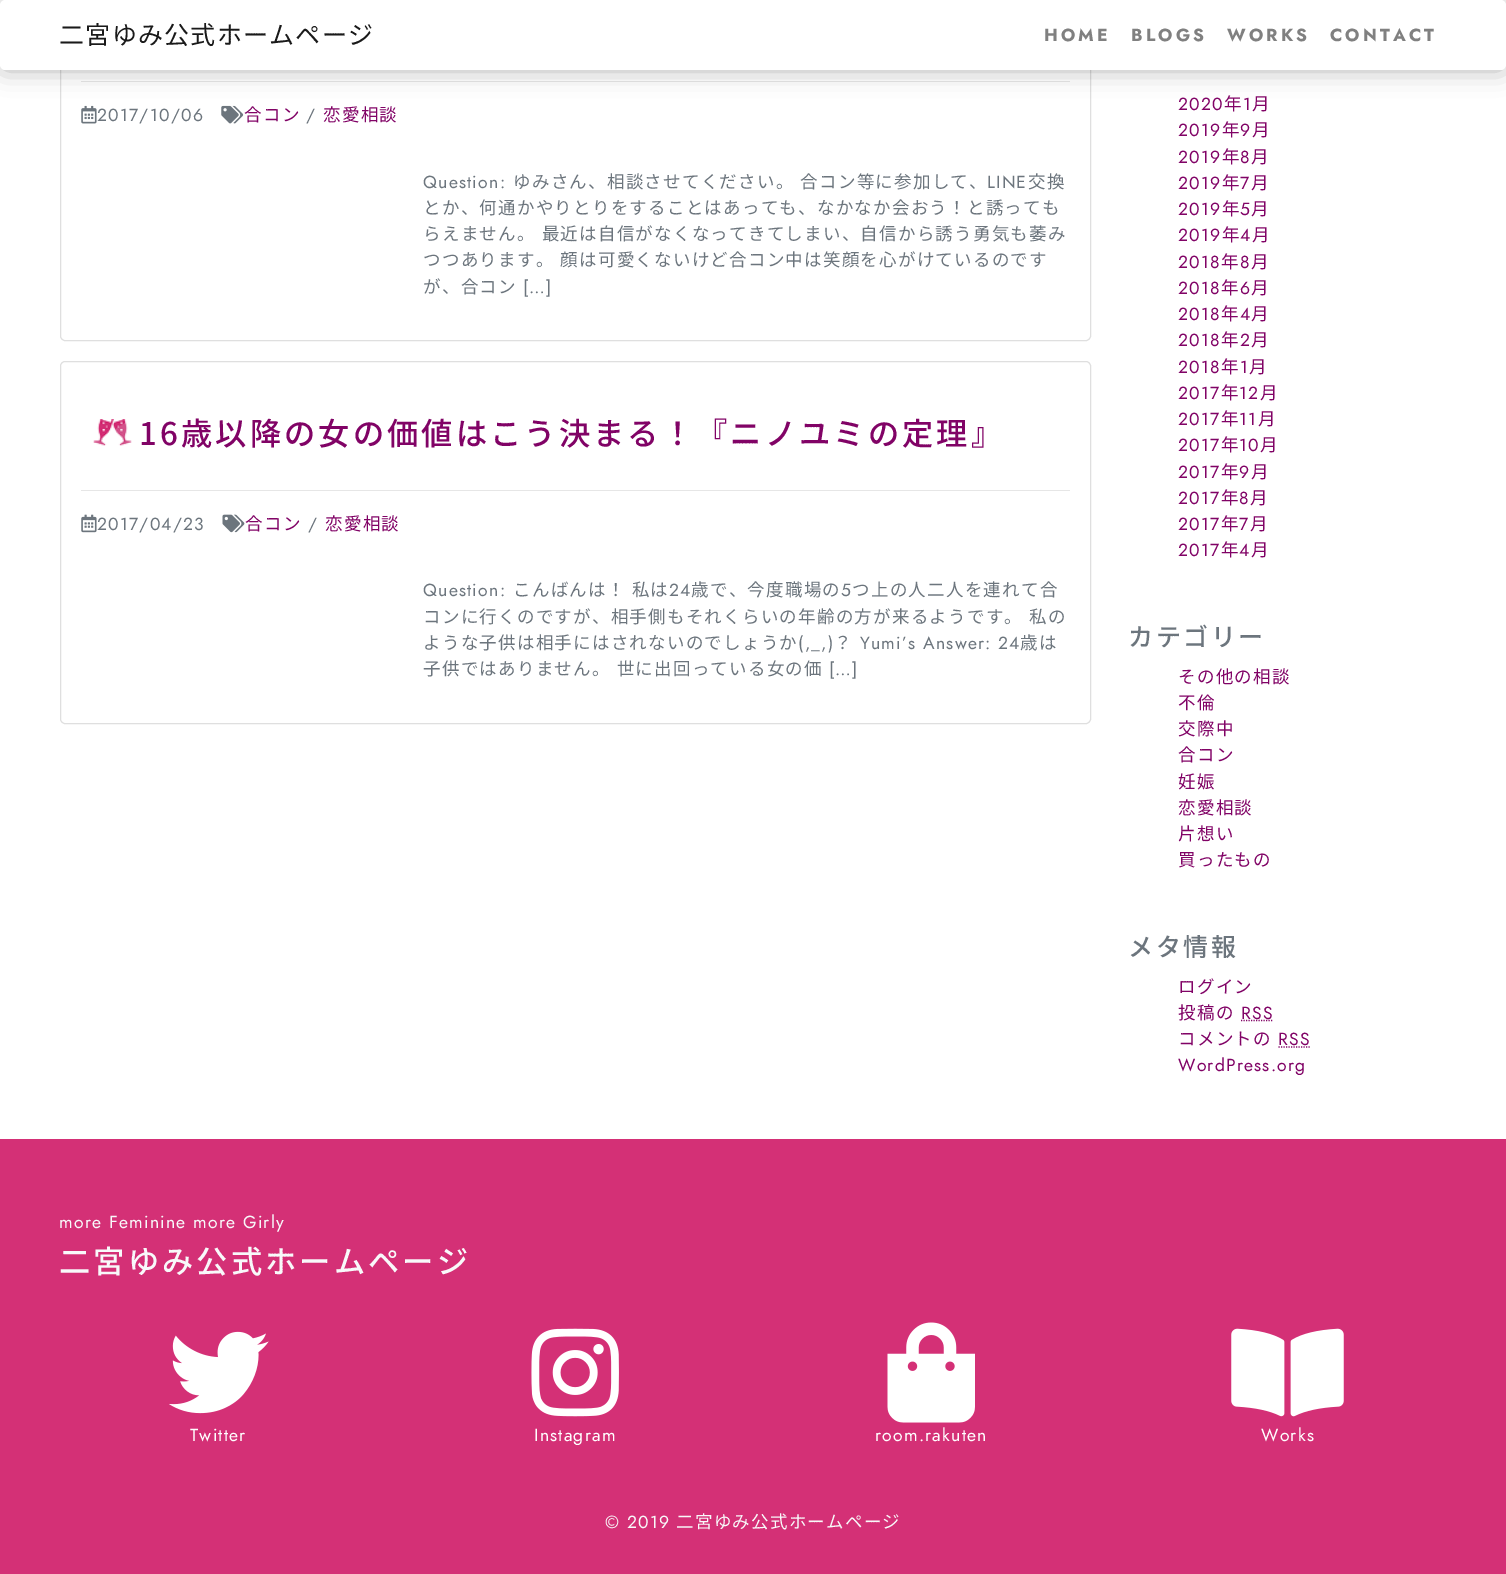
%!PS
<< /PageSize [1506 1574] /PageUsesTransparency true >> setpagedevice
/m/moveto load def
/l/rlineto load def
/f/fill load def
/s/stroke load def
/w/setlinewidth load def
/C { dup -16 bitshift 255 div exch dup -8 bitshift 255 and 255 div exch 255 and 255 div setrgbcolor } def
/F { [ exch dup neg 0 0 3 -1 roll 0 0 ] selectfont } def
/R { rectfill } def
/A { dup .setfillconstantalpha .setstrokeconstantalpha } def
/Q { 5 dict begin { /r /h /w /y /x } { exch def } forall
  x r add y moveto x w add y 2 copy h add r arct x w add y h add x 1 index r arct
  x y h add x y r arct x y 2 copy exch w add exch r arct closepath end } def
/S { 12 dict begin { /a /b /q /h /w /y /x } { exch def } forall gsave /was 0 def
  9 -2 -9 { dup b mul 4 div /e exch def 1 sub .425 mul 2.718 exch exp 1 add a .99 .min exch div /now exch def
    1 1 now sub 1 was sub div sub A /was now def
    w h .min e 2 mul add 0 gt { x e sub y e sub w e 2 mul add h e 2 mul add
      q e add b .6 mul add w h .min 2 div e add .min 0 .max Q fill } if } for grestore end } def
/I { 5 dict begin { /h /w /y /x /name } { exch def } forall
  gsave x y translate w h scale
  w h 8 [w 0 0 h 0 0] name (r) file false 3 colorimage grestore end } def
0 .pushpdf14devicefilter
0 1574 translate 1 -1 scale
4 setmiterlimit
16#FFFFFF C
0 0 1506 1574 R
16#DFDFDF C
60.5 -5.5 1030 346 4.5 Q s
16#E6E6E6 C
81 81 989 1 R
(1.rgb) 81 105 16 19 I
(2.rgb) 221 105 23 19 I
16#000000 C
0 0 1506 70 5 12.5 .3 S
16#FFFFFF C
0 0 1506 70 5 Q f
/NotoSansJP-Regular 25 F
16#1A1A1A C
59 44 m 1.25 0 (二宮ゆみ公式ホームページ) ashow
/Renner-Bold 17.5 F
16#808080 C
1044 41 m 3.1 0 (HOME) ashow
1131 41 m 3.1 0 (BLOGS) ashow
1227 41 m 3.1 0 (WORKS) ashow
1330 41 m 3.1 0 (CONTACT) ashow
/Renner-Regular 17.5 F
16#6C757D C
97 121 m 1.25 0 (2017/10/06) ashow
/NotoSansJP-Regular 17.5 F
16#810366 C
244 121 m 1.25 0 (合コン) ashow
/Renner-Regular 17.5 F
16#6C757D C
306 121 m 1.25 0 (/) ashow
/NotoSansJP-Regular 17.5 F
16#810366 C
323 121 m 1.25 0 (恋愛相談) ashow
/Renner-Regular 17.5 F
16#6C757D C
423 188 m 1.25 0 (Question:) ashow
/NotoSansJP-Regular 17.5 F
513 188 m 1 0 32 1.25 0 (ゆみさん、相談させてください。 合コン等に参加して、) awidthshow
/Renner-Regular 17.5 F
987 188 m 1.25 0 (LINE) ashow
/NotoSansJP-Regular 17.5 F
1028 188 m 1.25 0 (交換) ashow
423 214 m 1.25 0 (とか、何通かやりとりをすることはあっても、なかなか会おう！と誘っても) ashow
423 240 m 1 0 32 1.25 0 (らえません。 最近は自信がなくなってきてしまい、自信から誘う勇気も萎み) awidthshow
423 266 m 1 0 32 1.25 0 (つつあります。 顔は可愛くないけど合コン中は笑顔を心がけているのです) awidthshow
423 293 m 1.25 0 (が、合コン) ashow
/Renner-Regular 17.5 F
523 293 m 1.25 0 ([…]) ashow
16#DFDFDF C
60.5 361.5 1030 362 4.5 Q s
(3.rgb) 93 419 39 27 I
/NotoSansJP-Medium 31.25 F
16#810366 C
139 445 m 3.1 0 (16歳以降の女の価値はこう決まる！『ニノユミの定理』) ashow
16#E6E6E6 C
81 490 989 1 R
(4.rgb) 81 514 16 19 I
/Renner-Regular 17.5 F
16#6C757D C
97 530 m 1.25 0 (2017/04/23) ashow
(5.rgb) 222 514 23 19 I
/NotoSansJP-Regular 17.5 F
16#810366 C
245 530 m 1.25 0 (合コン) ashow
/Renner-Regular 17.5 F
16#6C757D C
308 530 m 1.25 0 (/) ashow
/NotoSansJP-Regular 17.5 F
16#810366 C
325 530 m 1.25 0 (恋愛相談) ashow
/Renner-Regular 17.5 F
16#6C757D C
423 596 m 1.25 0 (Question:) ashow
/NotoSansJP-Regular 17.5 F
513 596 m 1 0 32 1.25 0 (こんばんは！ 私は) awidthshow
/Renner-Regular 17.5 F
669 596 m 1.25 0 (24) ashow
/NotoSansJP-Regular 17.5 F
691 596 m 1.25 0 (歳で、今度職場の) ashow
/Renner-Regular 17.5 F
841 596 m 1.25 0 (5) ashow
/NotoSansJP-Regular 17.5 F
852 596 m 1.25 0 (つ上の人二人を連れて合) ashow
423 623 m 1 0 32 1.25 0 (コンに行くのですが、相手側もそれくらいの年齢の方が来るようです。 私の) awidthshow
423 649 m 1.25 0 (ような子供は相手にはされないのでしょうか) ashow
/Renner-Regular 17.5 F
798 649 m 1.25 0 (\(,_,\)) ashow
/NotoSansJP-Regular 17.5 F
834 649 m 1.25 0 (？) ashow
/Renner-Regular 17.5 F
860 649 m 1.25 0 (Yumi’s Answer: 24) ashow
/NotoSansJP-Regular 17.5 F
1020 649 m 1.25 0 (歳は) ashow
423 675 m 1 0 32 1.25 0 (子供ではありません。 世に出回っている女の価) awidthshow
/Renner-Regular 17.5 F
829 675 m 1.25 0 ([…]) ashow
16#810366 C
1178 110 m 1.25 0 (2020) ashow
/NotoSansJP-Regular 17.5 F
1224 110 m 1.25 0 (年) ashow
/Renner-Regular 17.5 F
1243 110 m 1.25 0 (1) ashow
/NotoSansJP-Regular 17.5 F
1252 110 m 1.25 0 (月) ashow
/Renner-Regular 17.5 F
1178 136 m 1.25 0 (2019) ashow
/NotoSansJP-Regular 17.5 F
1222 136 m 1.25 0 (年) ashow
/Renner-Regular 17.5 F
1240 136 m 1.25 0 (9) ashow
/NotoSansJP-Regular 17.5 F
1252 136 m 1.25 0 (月) ashow
/Renner-Regular 17.5 F
1178 163 m 1.25 0 (2019) ashow
/NotoSansJP-Regular 17.5 F
1222 163 m 1.25 0 (年) ashow
/Renner-Regular 17.5 F
1240 163 m 1.25 0 (8) ashow
/NotoSansJP-Regular 17.5 F
1251 163 m 1.25 0 (月) ashow
/Renner-Regular 17.5 F
1178 189 m 1.25 0 (2019) ashow
/NotoSansJP-Regular 17.5 F
1222 189 m 1.25 0 (年) ashow
/Renner-Regular 17.5 F
1240 189 m 1.25 0 (7) ashow
/NotoSansJP-Regular 17.5 F
1251 189 m 1.25 0 (月) ashow
/Renner-Regular 17.5 F
1178 215 m 1.25 0 (2019) ashow
/NotoSansJP-Regular 17.5 F
1222 215 m 1.25 0 (年) ashow
/Renner-Regular 17.5 F
1240 215 m 1.25 0 (5) ashow
/NotoSansJP-Regular 17.5 F
1251 215 m 1.25 0 (月) ashow
/Renner-Regular 17.5 F
1178 241 m 1.25 0 (2019) ashow
/NotoSansJP-Regular 17.5 F
1222 241 m 1.25 0 (年) ashow
/Renner-Regular 17.5 F
1240 241 m 1.25 0 (4) ashow
/NotoSansJP-Regular 17.5 F
1252 241 m 1.25 0 (月) ashow
/Renner-Regular 17.5 F
1178 268 m 1.25 0 (2018) ashow
/NotoSansJP-Regular 17.5 F
1221 268 m 1.25 0 (年) ashow
/Renner-Regular 17.5 F
1240 268 m 1.25 0 (8) ashow
/NotoSansJP-Regular 17.5 F
1251 268 m 1.25 0 (月) ashow
/Renner-Regular 17.5 F
1178 294 m 1.25 0 (2018) ashow
/NotoSansJP-Regular 17.5 F
1221 294 m 1.25 0 (年) ashow
/Renner-Regular 17.5 F
1240 294 m 1.25 0 (6) ashow
/NotoSansJP-Regular 17.5 F
1251 294 m 1.25 0 (月) ashow
/Renner-Regular 17.5 F
1178 320 m 1.25 0 (2018) ashow
/NotoSansJP-Regular 17.5 F
1221 320 m 1.25 0 (年) ashow
/Renner-Regular 17.5 F
1240 320 m 1.25 0 (4) ashow
/NotoSansJP-Regular 17.5 F
1251 320 m 1.25 0 (月) ashow
/Renner-Regular 17.5 F
1178 346 m 1.25 0 (2018) ashow
/NotoSansJP-Regular 17.5 F
1221 346 m 1.25 0 (年) ashow
/Renner-Regular 17.5 F
1240 346 m 1.25 0 (2) ashow
/NotoSansJP-Regular 17.5 F
1251 346 m 1.25 0 (月) ashow
/Renner-Regular 17.5 F
1178 373 m 1.25 0 (2018) ashow
/NotoSansJP-Regular 17.5 F
1221 373 m 1.25 0 (年) ashow
/Renner-Regular 17.5 F
1240 373 m 1.25 0 (1) ashow
/NotoSansJP-Regular 17.5 F
1249 373 m 1.25 0 (月) ashow
/Renner-Regular 17.5 F
1178 399 m 1.25 0 (2017) ashow
/NotoSansJP-Regular 17.5 F
1221 399 m 1.25 0 (年) ashow
/Renner-Regular 17.5 F
1239 399 m 1.25 0 (12) ashow
/NotoSansJP-Regular 17.5 F
1260 399 m 1.25 0 (月) ashow
/Renner-Regular 17.5 F
1178 425 m 1.25 0 (2017) ashow
/NotoSansJP-Regular 17.5 F
1221 425 m 1.25 0 (年) ashow
/Renner-Regular 17.5 F
1239 425 m 1.25 0 (11) ashow
/NotoSansJP-Regular 17.5 F
1258 425 m 1.25 0 (月) ashow
/Renner-Regular 17.5 F
1178 451 m 1.25 0 (2017) ashow
/NotoSansJP-Regular 17.5 F
1221 451 m 1.25 0 (年) ashow
/Renner-Regular 17.5 F
1239 451 m 1.25 0 (10) ashow
/NotoSansJP-Regular 17.5 F
1260 451 m 1.25 0 (月) ashow
/Renner-Regular 17.5 F
1178 478 m 1.25 0 (2017) ashow
/NotoSansJP-Regular 17.5 F
1221 478 m 1.25 0 (年) ashow
/Renner-Regular 17.5 F
1239 478 m 1.25 0 (9) ashow
/NotoSansJP-Regular 17.5 F
1251 478 m 1.25 0 (月) ashow
/Renner-Regular 17.5 F
1178 504 m 1.25 0 (2017) ashow
/NotoSansJP-Regular 17.5 F
1221 504 m 1.25 0 (年) ashow
/Renner-Regular 17.5 F
1239 504 m 1.25 0 (8) ashow
/NotoSansJP-Regular 17.5 F
1250 504 m 1.25 0 (月) ashow
/Renner-Regular 17.5 F
1178 530 m 1.25 0 (2017) ashow
/NotoSansJP-Regular 17.5 F
1221 530 m 1.25 0 (年) ashow
/Renner-Regular 17.5 F
1239 530 m 1.25 0 (7) ashow
/NotoSansJP-Regular 17.5 F
1250 530 m 1.25 0 (月) ashow
/Renner-Regular 17.5 F
1178 556 m 1.25 0 (2017) ashow
/NotoSansJP-Regular 17.5 F
1221 556 m 1.25 0 (年) ashow
/Renner-Regular 17.5 F
1239 556 m 1.25 0 (4) ashow
/NotoSansJP-Regular 17.5 F
1251 556 m 1.25 0 (月) ashow
/NotoSansJP-Medium 25 F
16#6C757D C
1128 646 m 2.5 0 (カテゴリー) ashow
/NotoSansJP-Regular 17.5 F
16#810366 C
1178 683 m 1.25 0 (その他の相談) ashow
1178 709 m 1.25 0 (不倫) ashow
1178 735 m 1.25 0 (交際中) ashow
1178 761 m 1.25 0 (合コン) ashow
1178 788 m 1.25 0 (妊娠) ashow
1178 814 m 1.25 0 (恋愛相談) ashow
1178 840 m 1.25 0 (片想い) ashow
1178 866 m 1.25 0 (買ったもの) ashow
/NotoSansJP-Medium 25 F
16#6C757D C
1128 956 m 2.5 0 (メタ情報) ashow
/NotoSansJP-Regular 17.5 F
16#810366 C
1178 993 m 1.25 0 (ログイン) ashow
1178 1019 m 1.25 0 (投稿の) ashow
1.2 w
[1.25 1.25] 0 setdash
1241 1020.5 m 32.5 0 l s
/Renner-Regular 17.5 F
1241 1019 m 1.25 0 (RSS) ashow
/NotoSansJP-Regular 17.5 F
1178 1045 m 1.25 0 (コメントの) ashow
/Renner-Regular 17.5 F
1278 1045 m 1.25 0 (RSS) ashow
1278.5 1047 m 32.5 0 l s
1178 1071 m 1.25 0 (WordPress.org) ashow
16#D43076 C
0 1139 1506 435 R
16#F8F9FA C
59 1228 m 1.25 0 (more Feminine more Girly) ashow
/NotoSansJP-Medium 31.25 F
59 1273 m 3.1 0 (二宮ゆみ公式ホームページ) ashow
(6.rgb) 169 1331 100 83 I
/Renner-Regular 17.5 F
16#FFFFFF C
190 1441 m 1.25 0 (Twitter) ashow
(7.rgb) 531 1328 88 89 I
534 1441 m 1.25 0 (Instagram) ashow
(8.rgb) 887 1322 88 101 I
875 1441 m 1.25 0 (room.rakuten) ashow
(9.rgb) 1231 1328 113 89 I
1261 1441 m 1.25 0 (Works) ashow
16#F8F9FA C
605 1528 m 1.25 0 (© 2019) ashow
/NotoSansJP-Regular 17.5 F
676 1528 m 1.25 0 (二宮ゆみ公式ホームページ) ashow
.poppdf14devicefilter showpage
